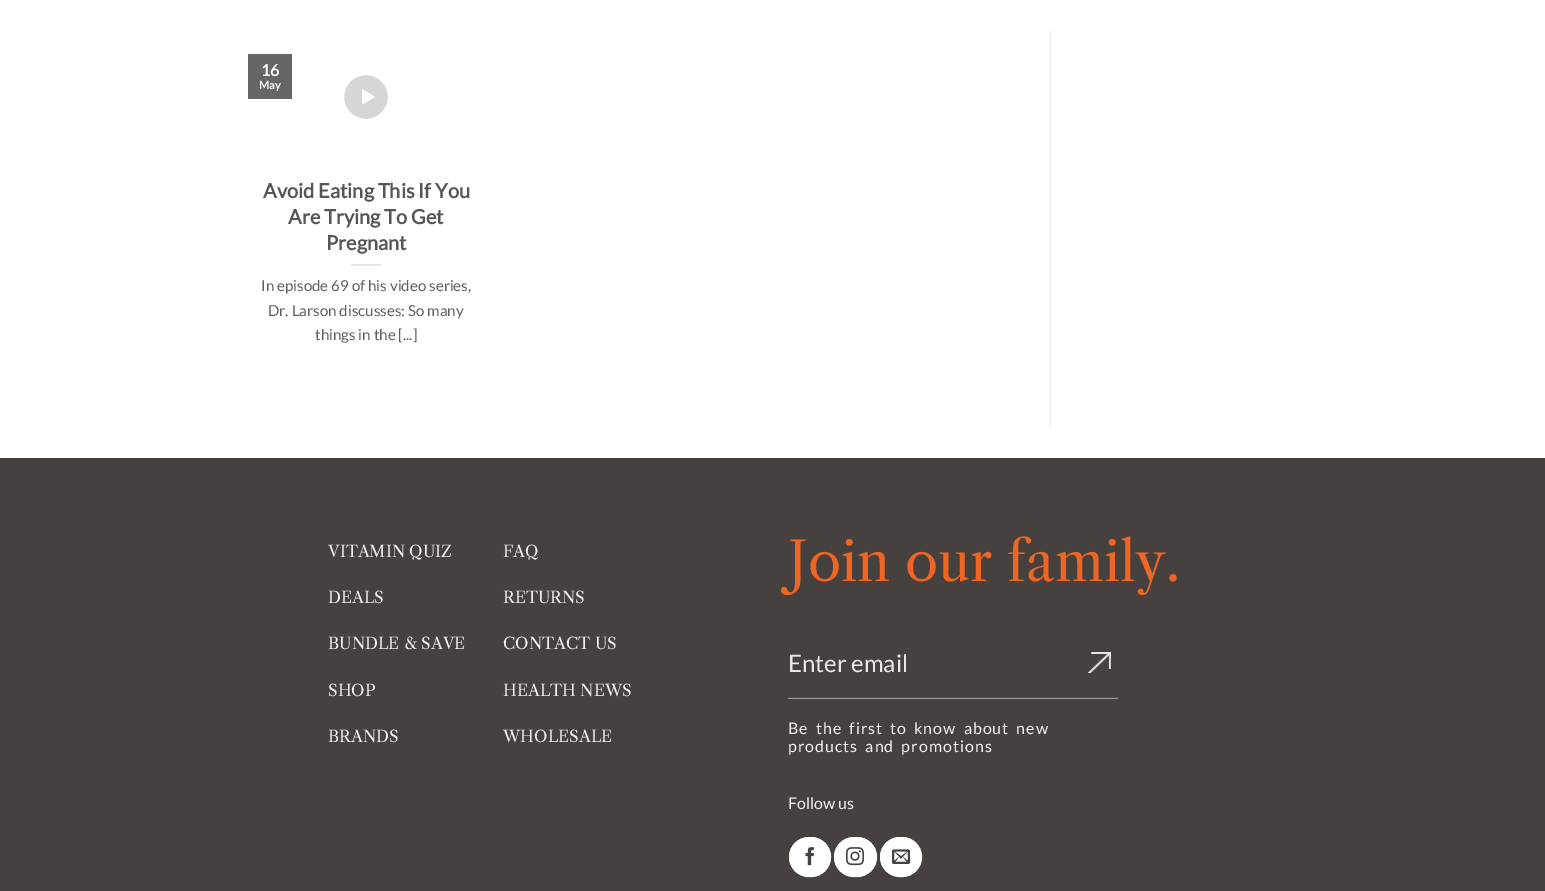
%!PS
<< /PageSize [1545 891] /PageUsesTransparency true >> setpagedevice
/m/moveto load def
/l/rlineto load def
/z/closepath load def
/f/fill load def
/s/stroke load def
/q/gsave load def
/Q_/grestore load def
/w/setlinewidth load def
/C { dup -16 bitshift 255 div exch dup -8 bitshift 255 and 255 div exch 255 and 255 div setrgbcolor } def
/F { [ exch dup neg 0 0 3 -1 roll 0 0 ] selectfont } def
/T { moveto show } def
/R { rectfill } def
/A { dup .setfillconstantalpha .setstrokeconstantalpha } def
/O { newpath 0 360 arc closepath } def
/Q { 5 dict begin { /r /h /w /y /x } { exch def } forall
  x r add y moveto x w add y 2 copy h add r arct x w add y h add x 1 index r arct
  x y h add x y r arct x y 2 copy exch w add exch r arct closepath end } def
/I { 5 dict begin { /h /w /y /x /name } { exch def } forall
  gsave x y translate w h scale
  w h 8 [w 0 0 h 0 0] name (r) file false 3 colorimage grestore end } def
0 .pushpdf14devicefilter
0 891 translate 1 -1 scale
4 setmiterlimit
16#FFFFFF C
0 0 1545 891 R
16#666666 C
248 54 44 45 R
/Lato-Bold 16 F
16#FFFFFF C
(16) 261 76 T
/Lato-Bold 11 F
(May) 259 89 T
16#D6D6D6 C
366 97 23 O q f Q_
16#FFFFFF C
2 w
s
362 89 m 13 8 l -13 7.5 l z f
/Lato-Bold 20 F
16#555555 C
(Avoid Eating This If You) 263 198 T
(Are Trying To Get) 288 224 T
(Pregnant) 326 250 T
16#E6E6E6 C
351 264 30 2 R
/Lato-Regular 15.1 F
16#5F5F5F C
(In episode 69 of his video series,) 261 291 T
(Dr. Larson discusses: So many) 268 316 T
(things in the [...]) 315 340 T
16#ECECEC C
1050 30 1 398 R
16#46413F C
0 459 1545 432 R
16#433E3C C
0 458 1545 1 R
/LibreCaslonText-Regular 16 F
16#F1F1F1 C
(VITAMIN QUIZ) 328 557 T
(DEALS) 328 603 T
(BUNDLE & SAVE) 328 649 T
(SHOP) 328 696 T
(BRANDS) 328 742 T
(FAQ) 503 557 T
(RETURNS) 503 603 T
(CONTACT US) 503 649 T
(HEALTH NEWS) 503 696 T
(WHOLESALE) 503 742 T
/LibreCaslonText-Regular 54 F
16#EF6624 C
(Join our family.) 788 581 T
16#A19A9C C
788 698 330 1 R
16#55504E C
788 697 330 1 R
/Lato-Regular 24 F
16#E7E7E3 C
(Enter email) 788 672 T
(1.rgb) 1088 652 23 21 I
/Lato-Regular 16 F
16#F1F1F1 C
788 734 m 3 0 32 1 0 (Be the first to know about new) awidthshow
788 752 m 3 0 32 1 0 (products and promotions) awidthshow
(Follow us) 788 809 T
16#FFFFFF C
789 837 42 40 20 Q f
0.5 A
790 838 40 38 19 Q s
1 A
(2.rgb) 805 847 9 19 I
834 837 43 40 20 Q f
0.5 A
835 838 41 38 19 Q s
1 A
(3.rgb) 846 847 18 19 I
880 837 42 40 20 Q f
0.5 A
881 838 40 38 19 Q s
1 A
(4.rgb) 892 849 18 15 I
.poppdf14devicefilter showpage
